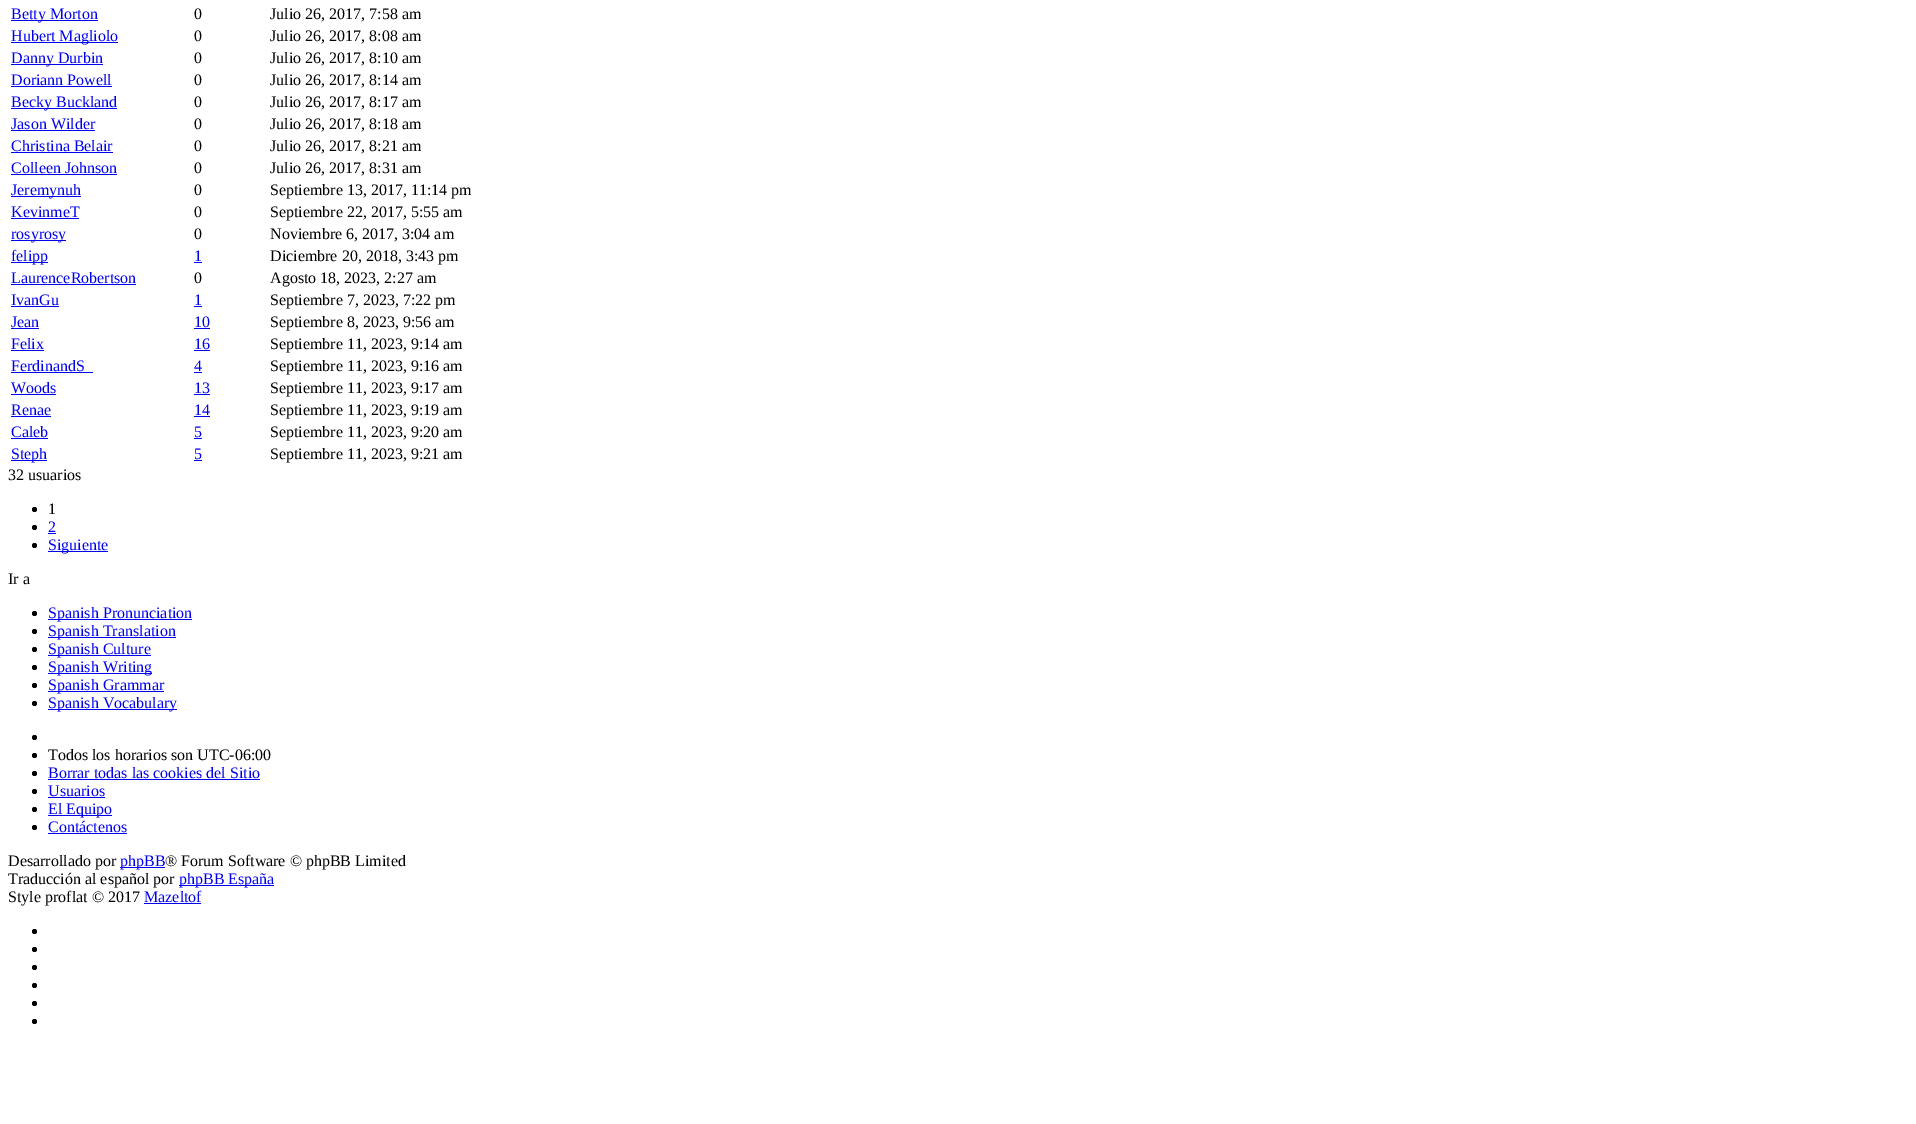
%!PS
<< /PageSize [1916 1124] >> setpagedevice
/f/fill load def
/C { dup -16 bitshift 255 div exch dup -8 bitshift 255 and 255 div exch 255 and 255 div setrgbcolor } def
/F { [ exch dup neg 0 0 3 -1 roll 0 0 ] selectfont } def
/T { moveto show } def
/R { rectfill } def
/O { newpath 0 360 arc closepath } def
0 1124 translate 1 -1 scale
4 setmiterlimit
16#FFFFFF C
0 0 1916 1124 R
16#0000EE C
11 20 87 1 R
/LiberationSerif-Regular 16 F
(Betty Morton) 11 19 T
16#000000 C
(0) 194 19 T
(Julio 26, 2017, 7:58 am) 270 19 T
16#0000EE C
11 42 107 1 R
(Hubert Magliolo) 11 41 T
16#000000 C
(0) 194 41 T
(Julio 26, 2017, 8:08 am) 270 41 T
16#0000EE C
11 64 92 1 R
(Danny Durbin) 11 63 T
16#000000 C
(0) 194 63 T
(Julio 26, 2017, 8:10 am) 270 63 T
16#0000EE C
(Doriann Powell) 11 85 T
11 86 101 1 R
16#000000 C
(0) 194 85 T
(Julio 26, 2017, 8:14 am) 270 85 T
16#0000EE C
11 108 106 1 R
(Becky Buckland) 11 107 T
16#000000 C
(0) 194 107 T
(Julio 26, 2017, 8:17 am) 270 107 T
16#0000EE C
(Jason Wilder) 11 129 T
11 130 84 1 R
16#000000 C
(0) 194 129 T
(Julio 26, 2017, 8:18 am) 270 129 T
16#0000EE C
(Christina Belair) 11 151 T
11 152 102 1 R
16#000000 C
(0) 194 151 T
(Julio 26, 2017, 8:21 am) 270 151 T
16#0000EE C
(Colleen Johnson) 11 173 T
11 174 106 1 R
16#000000 C
(0) 194 173 T
(Julio 26, 2017, 8:31 am) 270 173 T
16#0000EE C
11 196 70 1 R
(Jeremynuh) 11 195 T
16#000000 C
(0) 194 195 T
(Septiembre 13, 2017, 11:14 pm) 270 195 T
16#0000EE C
(KevinmeT) 11 217 T
11 218 68 1 R
16#000000 C
(0) 194 217 T
(Septiembre 22, 2017, 5:55 am) 270 217 T
16#0000EE C
11 240 55 1 R
(rosyrosy) 11 239 T
16#000000 C
(0) 194 239 T
(Noviembre 6, 2017, 3:04 am) 270 239 T
16#0000EE C
11 262 37 1 R
(felipp) 11 261 T
(1) 194 261 T
194 262 8 1 R
16#000000 C
(Diciembre 20, 2018, 3:43 pm) 270 261 T
16#0000EE C
(LaurenceRobertson) 11 283 T
11 284 125 1 R
16#000000 C
(0) 194 283 T
(Agosto 18, 2023, 2:27 am) 270 283 T
16#0000EE C
(IvanGu) 11 305 T
11 306 48 1 R
(1) 194 305 T
194 306 8 1 R
16#000000 C
(Septiembre 7, 2023, 7:22 pm) 270 305 T
16#0000EE C
(Jean) 11 327 T
11 328 28 1 R
(10) 194 327 T
194 328 16 1 R
16#000000 C
(Septiembre 8, 2023, 9:56 am) 270 327 T
16#0000EE C
(Felix) 11 349 T
11 350 33 1 R
(16) 194 349 T
194 350 16 1 R
16#000000 C
(Septiembre 11, 2023, 9:14 am) 270 349 T
16#0000EE C
(FerdinandS) 11 371 T
11 372 82 1 R
(4) 194 371 T
194 372 8 1 R
16#000000 C
(Septiembre 11, 2023, 9:16 am) 270 371 T
16#0000EE C
(Woods) 11 393 T
11 394 45 1 R
(13) 194 393 T
194 394 16 1 R
16#000000 C
(Septiembre 11, 2023, 9:17 am) 270 393 T
16#0000EE C
(Renae) 11 415 T
11 416 40 1 R
(14) 194 415 T
194 416 16 1 R
16#000000 C
(Septiembre 11, 2023, 9:19 am) 270 415 T
16#0000EE C
(Caleb) 11 437 T
11 438 37 1 R
(5) 194 437 T
194 438 8 1 R
16#000000 C
(Septiembre 11, 2023, 9:20 am) 270 437 T
16#0000EE C
11 460 36 1 R
(Steph) 11 459 T
(5) 194 459 T
194 460 8 1 R
16#000000 C
(Septiembre 11, 2023, 9:21 am) 270 459 T
(32 usuarios) 8 480 T
34.5 509.5 2.5 O f
(1) 48 514 T
34.5 527.5 2.5 O f
16#0000EE C
(2) 48 532 T
48 533 8 1 R
16#000000 C
34.5 545.5 2.5 O f
16#0000EE C
48 551 60 1 R
(Siguiente) 48 550 T
16#000000 C
(Ir a) 8 584 T
34.5 613.5 2.5 O f
16#0000EE C
48 619 144 1 R
(Spanish Pronunciation) 48 618 T
16#000000 C
34.5 631.5 2.5 O f
16#0000EE C
48 637 128 1 R
(Spanish Translation) 48 636 T
16#000000 C
34.5 649.5 2.5 O f
16#0000EE C
48 655 103 1 R
(Spanish Culture) 48 654 T
16#000000 C
34.5 667.5 2.5 O f
16#0000EE C
48 673 104 1 R
(Spanish Writing) 48 672 T
16#000000 C
34.5 685.5 2.5 O f
16#0000EE C
48 691 116 1 R
(Spanish Grammar) 48 690 T
16#000000 C
34.5 703.5 2.5 O f
16#0000EE C
48 709 129 1 R
(Spanish Vocabulary) 48 708 T
16#000000 C
34.5 737.5 2.5 O f
34.5 755.5 2.5 O f
(Todos los horarios son UTC-06:00) 48 760 T
34.5 773.5 2.5 O f
16#0000EE C
(Borrar todas las cookies del Sitio) 48 778 T
48 779 212 1 R
16#000000 C
34.5 791.5 2.5 O f
16#0000EE C
(Usuarios) 48 796 T
48 797 57 1 R
16#000000 C
34.5 809.5 2.5 O f
16#0000EE C
48 815 64 1 R
(El Equipo) 48 814 T
16#000000 C
34.5 827.5 2.5 O f
16#0000EE C
(Contáctenos) 48 832 T
48 833 79 1 R
16#000000 C
(Desarrollado por) 8 866 T
16#0000EE C
120 867 45 1 R
(phpBB) 120 866 T
16#000000 C
(® Forum Software © phpBB Limited) 165 866 T
(Traducción al español por) 8 884 T
16#0000EE C
179 885 95 1 R
(phpBB España) 179 884 T
16#000000 C
(Style proflat © 2017) 8 902 T
16#0000EE C
(Mazeltof) 144 902 T
144 903 57 1 R
16#000000 C
34.5 931.5 2.5 O f
34.5 949.5 2.5 O f
34.5 967.5 2.5 O f
34.5 985.5 2.5 O f
34.5 1003.5 2.5 O f
34.5 1021.5 2.5 O f
showpage
